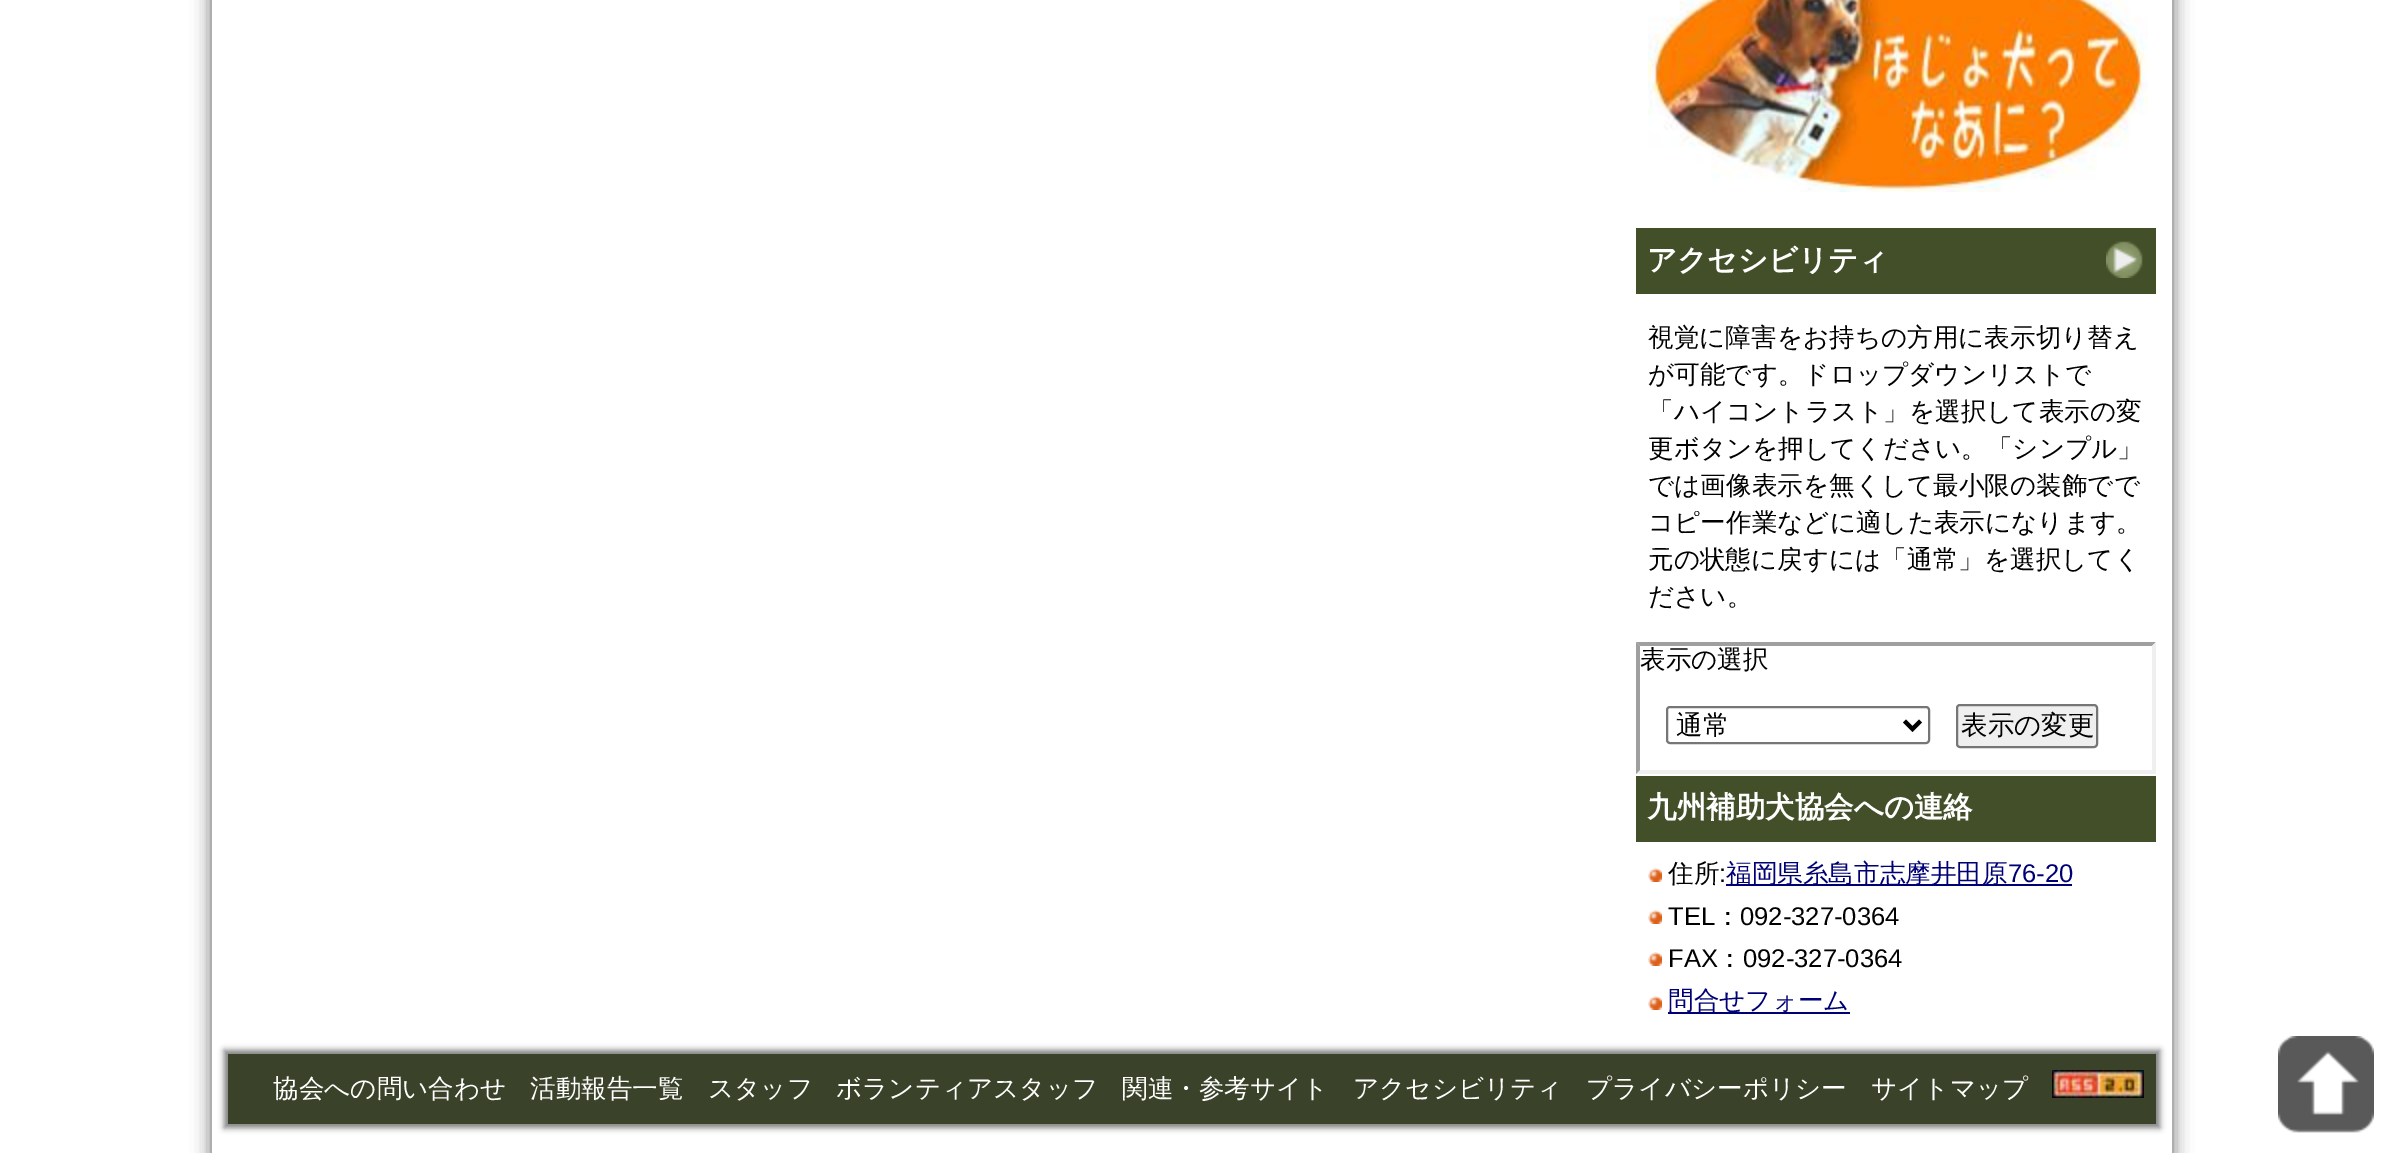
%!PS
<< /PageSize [2383 1153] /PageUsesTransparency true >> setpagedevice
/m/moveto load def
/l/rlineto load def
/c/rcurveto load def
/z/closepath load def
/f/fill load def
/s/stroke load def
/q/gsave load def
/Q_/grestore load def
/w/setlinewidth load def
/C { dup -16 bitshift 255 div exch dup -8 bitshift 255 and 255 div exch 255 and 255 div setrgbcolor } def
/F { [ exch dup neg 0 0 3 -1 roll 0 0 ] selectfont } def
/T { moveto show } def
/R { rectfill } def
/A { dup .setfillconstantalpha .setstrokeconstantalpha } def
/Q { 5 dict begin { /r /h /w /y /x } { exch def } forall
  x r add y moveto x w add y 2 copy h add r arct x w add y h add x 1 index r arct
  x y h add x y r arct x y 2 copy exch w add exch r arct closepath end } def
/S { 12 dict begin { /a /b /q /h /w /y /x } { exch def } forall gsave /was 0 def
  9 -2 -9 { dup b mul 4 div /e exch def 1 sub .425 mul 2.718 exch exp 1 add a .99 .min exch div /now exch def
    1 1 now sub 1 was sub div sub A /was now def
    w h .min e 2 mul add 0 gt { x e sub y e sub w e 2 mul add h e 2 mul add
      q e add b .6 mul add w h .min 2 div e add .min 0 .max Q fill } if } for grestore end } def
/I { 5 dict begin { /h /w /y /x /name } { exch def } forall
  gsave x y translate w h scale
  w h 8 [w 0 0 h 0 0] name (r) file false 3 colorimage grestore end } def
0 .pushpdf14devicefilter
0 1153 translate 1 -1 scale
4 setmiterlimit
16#FFFFFF C
0 0 2383 1153 R
q
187 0 m 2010 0 l 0 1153 l -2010 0 l z 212 -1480 m 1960 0 l 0 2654 l -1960 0 l z eoclip newpath
16#000000 C
212 -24 1960 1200 0 8 .3 S
Q_
q
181 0 m 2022 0 l 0 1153 l -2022 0 l z 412 -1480 m 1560 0 l 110.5 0 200 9 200 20 c 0 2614 l 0 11 -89.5 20 -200 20 c -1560 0 l -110.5 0 -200 -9 -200 -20 c 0 -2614 l 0 -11 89.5 -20 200 -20 c z eoclip newpath
16#000000 C
212 -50 1960 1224 20 10 .4 S
Q_
(1.rgb) 1648 0 500 192 I
16#434F29 C
1636 228 520 66 R
(2.rgb) 2106 241 37 37 I
/WenQuanYiZenHei-Bold 29.5 F
16#FFFFFF C
(アクセシビリティ) 1647 270 T
/WenQuanYiZenHei-Medium 25.6 F
16#000000 C
(視覚に障害をお持ちの方用に表示切り替え) 1648 346 T
(が可能です。ドロップダウンリストで) 1648 383 T
(「ハイコントラスト」を選択して表示の変) 1648 420 T
(更ボタンを押してください。「シンプル」) 1648 457 T
(では画像表示を無くして最小限の装飾でで) 1648 494 T
(コピー作業などに適した表示になります。) 1648 531 T
(元の状態に戻すには「通常」を選択してく) 1648 568 T
(ださい。) 1648 605 T
16#9F9F9F C
1636 642 m 520 0 l -4 4 l -512 0 l z f
16#EFEFEF C
2156 642 m 0 132 l -4 -4 l 0 -124 l z f
2156 774 m -520 0 l 4 -4 l 512 0 l z f
16#9F9F9F C
1636 774 m 0 -132 l 4 4 l 0 124 l z f
16#000000 C
(表示の選択) 1640 668 T
16#767676 C
2 w
1667 707 262 36 3 Q s
16#000000 C
4 w
1904.5 721 m 8 8 l 8 -8 l s
/WenQuanYiZenHei-Medium 26.5 F
(通常) 1676 734 T
16#EFEFEF C
1957 705 140 42 3 Q q f Q_
16#767676 C
2 w
s
16#000000 C
(表示の変更) 1961 734 T
16#434F29 C
1636 776 520 66 R
/WenQuanYiZenHei-Bold 29.5 F
16#FFFFFF C
(九州補助犬協会への連絡) 1647 817 T
(3.rgb) 1648 868 14 14 I
/WenQuanYiZenHei-Medium 25.6 F
16#000000 C
(住所) 1668 882 T
/LiberationSans-Regular 25.6 F
(:) 1719 882 T
16#000075 C
1726 884 346 2 R
/WenQuanYiZenHei-Medium 25.6 F
(福岡県糸島市志摩井田原) 1726 882 T
/LiberationSans-Regular 25.6 F
(76-20) 2008 882 T
(3.rgb) 1648 910 14 14 I
16#000000 C
(TEL) 1668 925 T
/WenQuanYiZenHei-Medium 25.6 F
(：) 1715 925 T
/LiberationSans-Regular 25.6 F
(092-327-0364) 1740 925 T
(3.rgb) 1648 952 14 14 I
(FAX) 1668 967 T
/WenQuanYiZenHei-Medium 25.6 F
(：) 1717 967 T
/LiberationSans-Regular 25.6 F
(092-327-0364) 1743 967 T
(3.rgb) 1648 996 14 14 I
16#000075 C
1668 1012 182 2 R
/WenQuanYiZenHei-Medium 25.6 F
(問合せフォーム) 1668 1009 T
16#000000 C
224 1050 1936 78 0 3 .5 S
16#3A4229 C
228 1054 1928 70 R
16#FFFFFF C
(協会への問い合わせ) 273 1097 T
(活動報告一覧) 530 1097 T
(スタッフ) 708 1097 T
(ボランティアスタッフ) 836 1097 T
(関連・参考サイト) 1122 1097 T
(アクセシビリティ) 1353 1097 T
(プライバシーポリシー) 1586 1097 T
(サイトマップ) 1871 1097 T
(4.rgb) 2052 1070 92 28 I
(5.rgb) 2278 1036 96 97 I
.poppdf14devicefilter showpage
